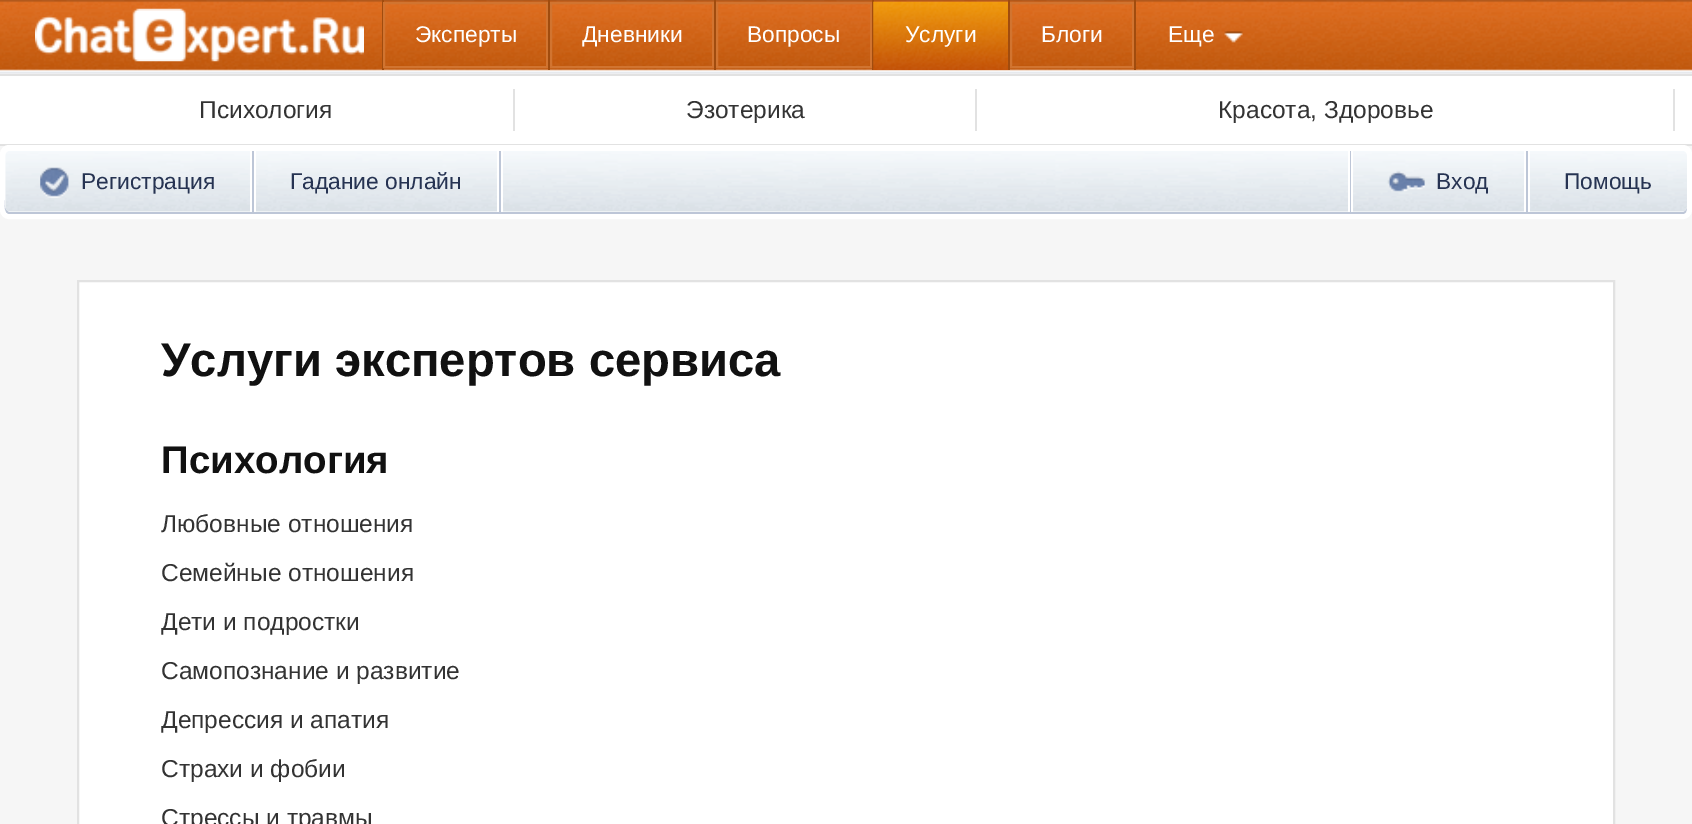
%!PS
<< /PageSize [1692 824] >> setpagedevice
/m/moveto load def
/l/rlineto load def
/c/rcurveto load def
/z/closepath load def
/f/fill load def
/s/stroke load def
/q/gsave load def
/Q_/grestore load def
/w/setlinewidth load def
/C { dup -16 bitshift 255 div exch dup -8 bitshift 255 and 255 div exch 255 and 255 div setrgbcolor } def
/F { [ exch dup neg 0 0 3 -1 roll 0 0 ] selectfont } def
/T { moveto show } def
/R { rectfill } def
/Q { 5 dict begin { /r /h /w /y /x } { exch def } forall
  x r add y moveto x w add y 2 copy h add r arct x w add y h add x 1 index r arct
  x y h add x y r arct x y 2 copy exch w add exch r arct closepath end } def
/I { 5 dict begin { /h /w /y /x /name } { exch def } forall
  gsave x y translate w h scale
  w h 8 [w 0 0 h 0 0] name (r) file false 3 colorimage grestore end } def
0 824 translate 1 -1 scale
4 setmiterlimit
16#F6F6F6 C
0 0 1692 824 R
(1.rgb) 0 0 1692 74 I
(2.rgb) 35 8 329 54 I
16#A14C0E C
382 0 2 70 R
16#D17430 C
2 w
384 3 163 64 rectstroke
/LiberationSans-Regular 22.75 F
16#FFFFFF C
(Эксперты) 415 42 T
16#A14C0E C
548 0 2 70 R
16#D17430 C
551 3 162 64 rectstroke
16#FFFFFF C
(Дневники) 582 42 T
16#A14C0E C
714 0 2 70 R
16#D17430 C
717 3 154 64 rectstroke
16#FFFFFF C
(Вопросы) 747 42 T
16#A14C0E C
872 0 2 70 R
(3.rgb) 873 1 135 69 I
16#FFFFFF C
(Услуги) 905 42 T
16#A14C0E C
1008 0 2 70 R
16#D17430 C
1011 3 122 64 rectstroke
16#FFFFFF C
(Блоги) 1041 42 T
16#A14C0E C
1134 0 2 70 R
16#FFFFFF C
(Еще) 1168 42 T
(4.rgb) 1224 31 19 12 I
16#E2E2E2 C
0 144 1692 2 R
16#FFFFFF C
0 76 1692 68 R
16#E2E2E2 C
0 74 1692 2 R
/LiberationSans-Regular 24.5 F
16#333333 C
(Психология) 199 118 T
16#E2E2E2 C
513 89 2 42 R
16#333333 C
(Эзотерика) 686 118 T
16#E2E2E2 C
975 89 2 42 R
16#333333 C
(Красота, Здоровье) 1218 118 T
16#E2E2E2 C
1673 89 2 42 R
16#FFFFFF C
2.5 147.5 1687 69 6.5 Q q f Q_
5 w
s
16#BDC6D7 C
5 155 m 0 45 l 0 4 -2 14 5 14 c 1673 0 l 4 -1 4 -4 4 -8 c 0 3 -2 6 -5 6 c -1672 0 l -2 0 -5 -3 -5 -6 c z f
(5.rgb) 5 151 1682 61 I
(6.rgb) 40 167 29 31 I
/LiberationSans-Regular 22.75 F
16#263352 C
(Регистрация) 81 189 T
16#BDC6D7 C
252 151 2 61 R
16#FFFFFF C
254 151 2 61 R
250 151 2 61 R
16#263352 C
(Гадание онлайн) 290 189 T
16#BDC6D7 C
499 151 2 61 R
16#FFFFFF C
501 151 2 61 R
497 151 2 61 R
16#BDC6D7 C
1350 151 1 61 R
16#FFFFFF C
1351 151 2 61 R
1348 151 2 61 R
(7.rgb) 1387 171 38 21 I
16#263352 C
(Вход) 1436 189 T
16#BDC6D7 C
1526 151 2 61 R
16#FFFFFF C
1528 151 2 61 R
1524 151 2 61 R
16#263352 C
(Помощь) 1564 189 T
16#FFFFFF C
78 281 m 1536 0 l 0 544 l -1536 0 l z q f Q_
16#E2E2E2 C
2 w
s
/LiberationSans-Bold 47.25 F
16#111111 C
(Услуги экспертов сервиса) 161 376 T
/LiberationSans-Bold 38.5 F
(Психология) 161 473 T
/LiberationSans-Regular 24.5 F
16#333333 C
(Любовные отношения) 161 532 T
(Семейные отношения) 161 581 T
(Дети и подростки) 161 630 T
(Самопознание и развитие) 161 679 T
(Депрессия и апатия) 161 728 T
(Страхи и фобии) 161 777 T
(Стрессы и травмы) 161 826 T
showpage
